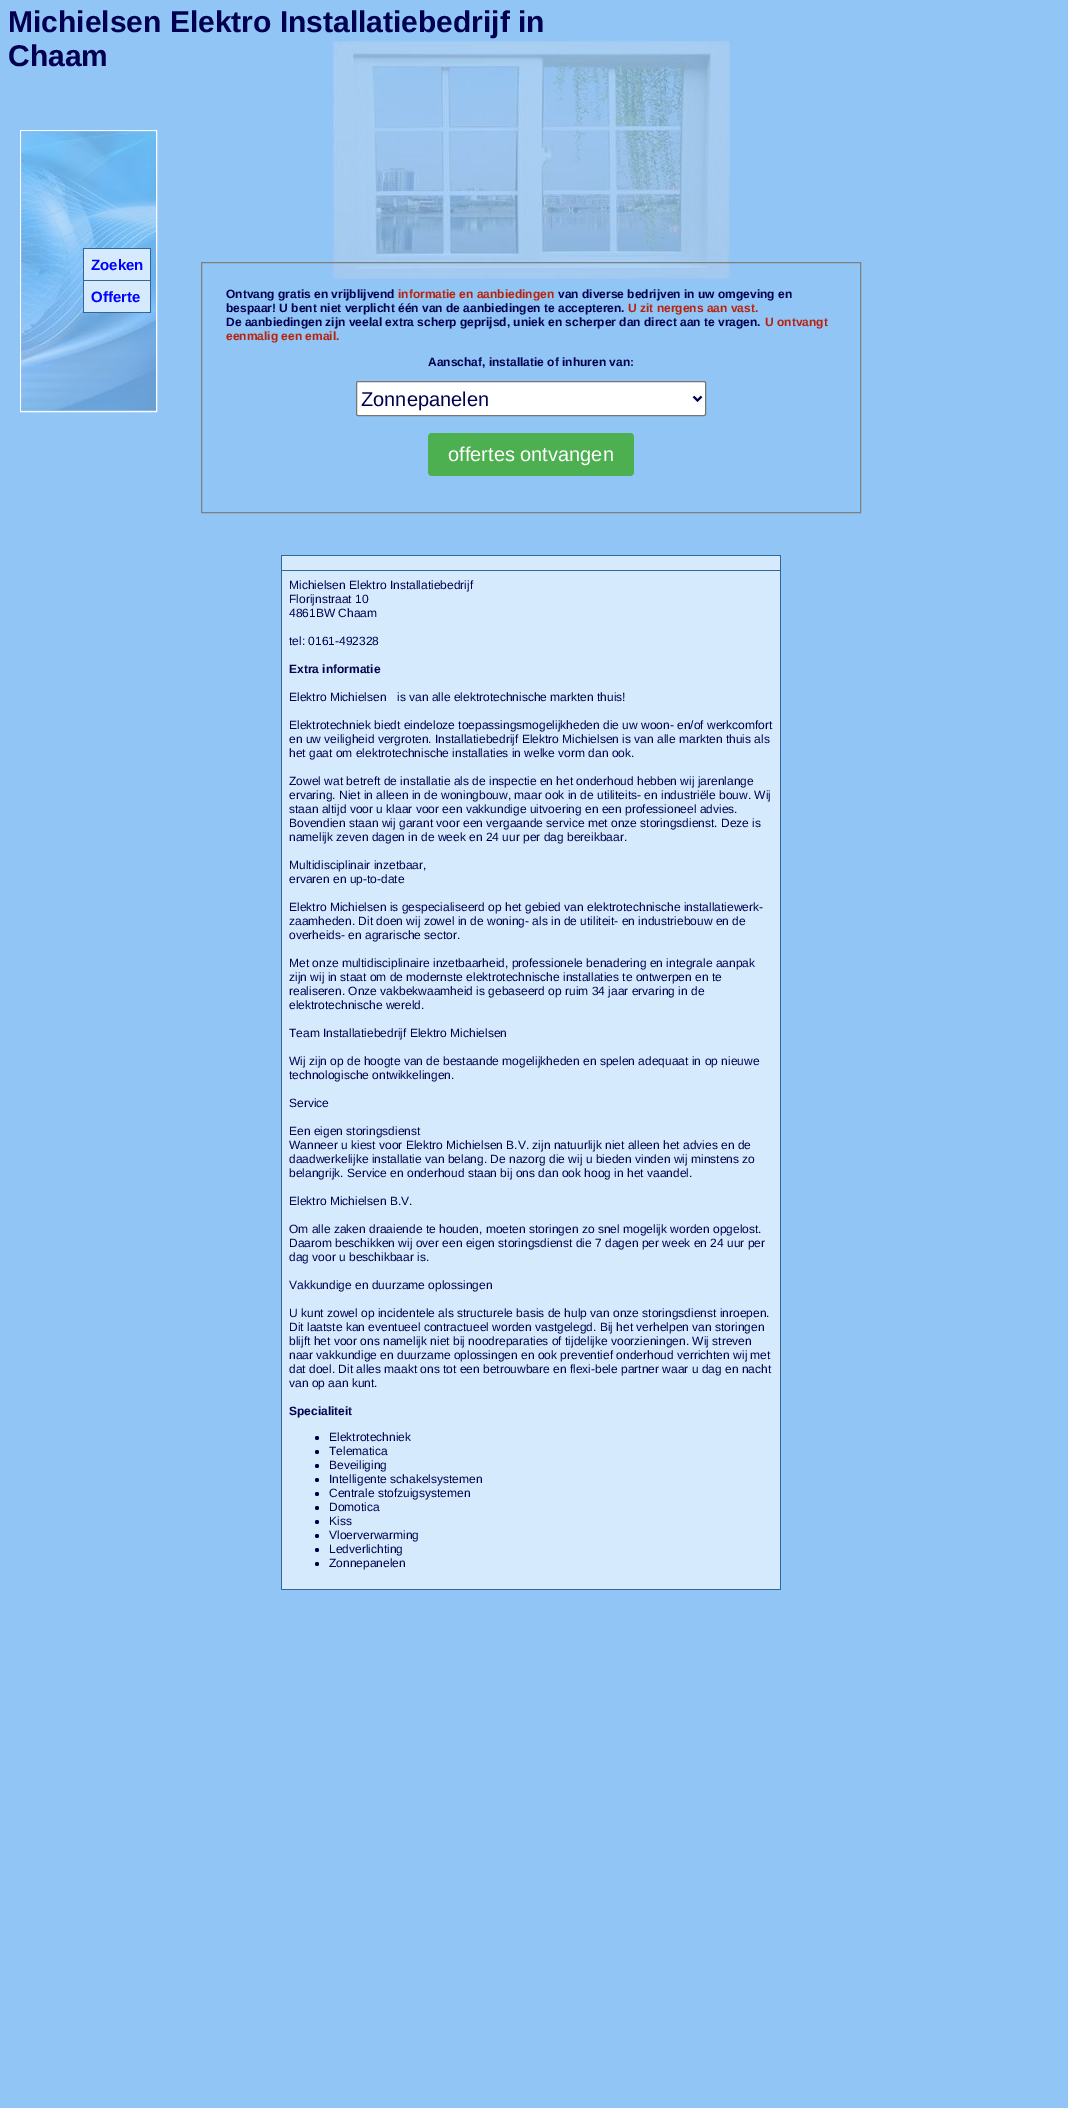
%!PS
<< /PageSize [1068 2108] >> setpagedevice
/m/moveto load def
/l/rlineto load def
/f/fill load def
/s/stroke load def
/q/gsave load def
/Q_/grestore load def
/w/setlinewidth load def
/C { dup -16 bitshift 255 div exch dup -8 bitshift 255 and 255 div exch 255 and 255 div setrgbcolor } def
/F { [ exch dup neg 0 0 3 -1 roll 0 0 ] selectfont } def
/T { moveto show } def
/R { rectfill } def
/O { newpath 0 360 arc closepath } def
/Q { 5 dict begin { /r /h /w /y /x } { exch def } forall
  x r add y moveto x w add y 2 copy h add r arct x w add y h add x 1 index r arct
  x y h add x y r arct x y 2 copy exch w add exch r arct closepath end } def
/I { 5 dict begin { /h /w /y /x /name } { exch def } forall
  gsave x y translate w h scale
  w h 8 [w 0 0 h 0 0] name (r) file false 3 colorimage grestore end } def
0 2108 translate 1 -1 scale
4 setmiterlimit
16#91C5F5 C
0 0 1068 2108 R
/LiberationSans-Bold 30 F
16#000051 C
(Michielsen Elektro Installatiebedrijf in) 8 32 T
(Chaam) 8 66 T
16#FFFFFF C
20.5 130.5 136 281 rectstroke
(1.rgb) 21 131 135 280 I
16#336699 C
83 248 68 65 R
16#D5EBFD C
84 249 66 31 R
/LiberationSans-Bold 15 F
16#0000FF C
(Zoeken) 91 270 T
16#D5EBFD C
84 281 66 31 R
16#0000FF C
(Offerte) 91 302 T
(2.rgb) 331 40 400 240 I
16#7F7F7F C
201.5 262.5 659 250 rectstroke
/LiberationSans-Bold 12 F
16#000051 C
(Ontvang gratis en vrijblijvend) 226 298 T
16#B7220C C
(informatie en aanbiedingen) 398 298 T
16#000051 C
(van diverse bedrijven in uw omgeving en) 558 298 T
(bespaar! U bent niet verplicht één van de aanbiedingen te accepteren.) 226 312 T
16#B7220C C
(U zit nergens aan vast.) 628 312 T
16#000051 C
(De aanbiedingen zijn veelal extra scherp geprijsd, uniek en scherper dan direct aan te vragen.) 226 326 T
16#B7220C C
(U ontvangt) 765 326 T
(eenmalig een email.) 226 340 T
16#000051 C
(Aanschaf, installatie of inhuren van:) 428 366 T
16#FFFFFF C
356.5 381.5 349 34 1.5 Q q f Q_
16#767676 C
s
16#000051 C
2 w
693.5 396.5 m 4 4 l 4 -4 l s
/LiberationSans-Regular 20 F
(Zonnepanelen) 361 406 T
16#4CAF50 C
428 433 206 43 4 Q f
16#FFFFFF C
(offertes ontvangen) 448 461 T
16#336699 C
281 555 500 1035 R
16#D5EBFD C
282 556 498 14 R
282 571 498 1018 R
/LiberationSans-Regular 12 F
16#000051 C
(Michielsen Elektro Installatiebedrijf) 289 589 T
(Florijnstraat 10) 289 603 T
(4861BW Chaam) 289 617 T
(tel: 0161-492328) 289 645 T
/LiberationSans-Bold 12 F
(Extra informatie) 289 673 T
/LiberationSans-Regular 12 F
(Elektro Michielsen) 289 701 T
(is van alle elektrotechnische markten thuis!) 397 701 T
(Elektrotechniek biedt eindeloze toepassingsmogelijkheden die uw woon- en/of werkcomfort) 289 729 T
(en uw veiligheid vergroten. Installatiebedrijf Elektro Michielsen is van alle markten thuis als) 289 743 T
(het gaat om elektrotechnische installaties in welke vorm dan ook.) 289 757 T
(Zowel wat betreft de installatie als de inspectie en het onderhoud hebben wij jarenlange) 289 785 T
(ervaring. Niet in alleen in de woningbouw, maar ook in de utiliteits- en industriële bouw. Wij) 289 799 T
(staan altijd voor u klaar voor een vakkundige uitvoering en een professioneel advies.) 289 813 T
(Bovendien staan wij garant voor een vergaande service met onze storingsdienst. Deze is) 289 827 T
(namelijk zeven dagen in de week en 24 uur per dag bereikbaar.) 289 841 T
(Multidisciplinair inzetbaar,) 289 869 T
(ervaren en up-to-date) 289 883 T
(Elektro Michielsen is gespecialiseerd op het gebied van elektrotechnische installatiewerk-) 289 911 T
(zaamheden. Dit doen wij zowel in de woning- als in de utiliteit- en industriebouw en de) 289 925 T
(overheids- en agrarische sector.) 289 939 T
(Met onze multidisciplinaire inzetbaarheid, professionele benadering en integrale aanpak) 289 967 T
(zijn wij in staat om de modernste elektrotechnische installaties te ontwerpen en te) 289 981 T
(realiseren. Onze vakbekwaamheid is gebaseerd op ruim 34 jaar ervaring in de) 289 995 T
(elektrotechnische wereld.) 289 1009 T
(Team Installatiebedrijf Elektro Michielsen) 289 1037 T
(Wij zijn op de hoogte van de bestaande mogelijkheden en spelen adequaat in op nieuwe) 289 1065 T
(technologische ontwikkelingen.) 289 1079 T
(Service) 289 1107 T
(Een eigen storingsdienst) 289 1135 T
(Wanneer u kiest voor Elektro Michielsen B.V. zijn natuurlijk niet alleen het advies en de) 289 1149 T
(daadwerkelijke installatie van belang. De nazorg die wij u bieden vinden wij minstens zo) 289 1163 T
(belangrijk. Service en onderhoud staan bij ons dan ook hoog in het vaandel.) 289 1177 T
(Elektro Michielsen B.V.) 289 1205 T
(Om alle zaken draaiende te houden, moeten storingen zo snel mogelijk worden opgelost.) 289 1233 T
(Daarom beschikken wij over een eigen storingsdienst die 7 dagen per week en 24 uur per) 289 1247 T
(dag voor u beschikbaar is.) 289 1261 T
(Vakkundige en duurzame oplossingen) 289 1289 T
(U kunt zowel op incidentele als structurele basis de hulp van onze storingsdienst inroepen.) 289 1317 T
(Dit laatste kan eventueel contractueel worden vastgelegd. Bij het verhelpen van storingen) 289 1331 T
(blijft het voor ons namelijk niet bij noodreparaties of tijdelijke voorzieningen. Wij streven) 289 1345 T
(naar vakkundige en duurzame oplossingen en ook preventief onderhoud verrichten wij met) 289 1359 T
(dat doel. Dit alles maakt ons tot een betrouwbare en flexi-bele partner waar u dag en nacht) 289 1373 T
(van op aan kunt.) 289 1387 T
/LiberationSans-Bold 12 F
(Specialiteit) 289 1415 T
317 1438 2 O f
/LiberationSans-Regular 12 F
(Elektrotechniek) 329 1441 T
317 1452 2 O f
(Telematica) 329 1455 T
317 1466 2 O f
(Beveiliging) 329 1469 T
317 1480 2 O f
(Intelligente schakelsystemen) 329 1483 T
317 1494 2 O f
(Centrale stofzuigsystemen) 329 1497 T
317 1508 2 O f
(Domotica) 329 1511 T
317 1522 2 O f
(Kiss) 329 1525 T
317 1536 2 O f
(Vloerverwarming) 329 1539 T
317 1550 2 O f
(Ledverlichting) 329 1553 T
317 1564 2 O f
(Zonnepanelen) 329 1567 T
showpage
